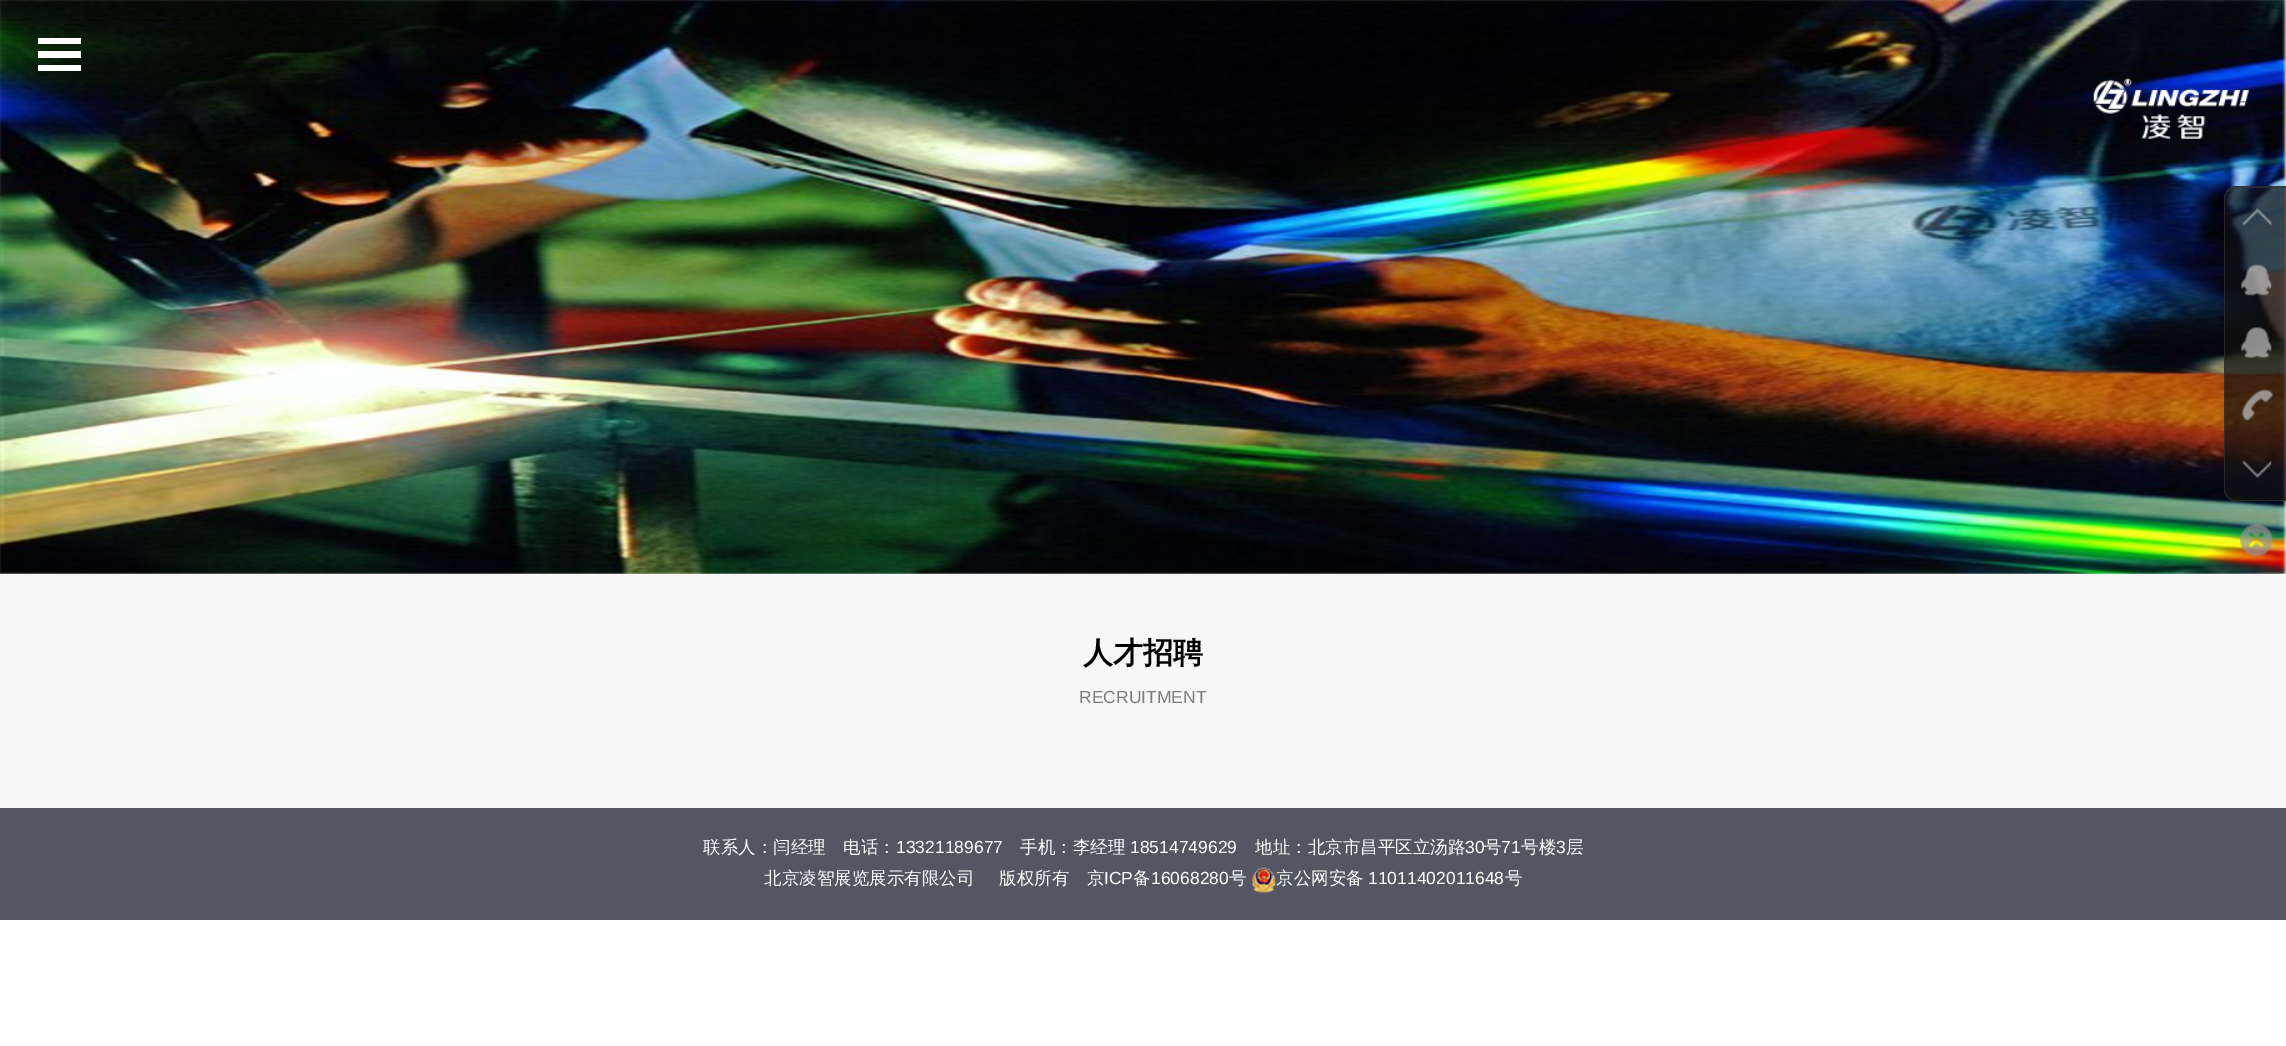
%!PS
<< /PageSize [2286 1046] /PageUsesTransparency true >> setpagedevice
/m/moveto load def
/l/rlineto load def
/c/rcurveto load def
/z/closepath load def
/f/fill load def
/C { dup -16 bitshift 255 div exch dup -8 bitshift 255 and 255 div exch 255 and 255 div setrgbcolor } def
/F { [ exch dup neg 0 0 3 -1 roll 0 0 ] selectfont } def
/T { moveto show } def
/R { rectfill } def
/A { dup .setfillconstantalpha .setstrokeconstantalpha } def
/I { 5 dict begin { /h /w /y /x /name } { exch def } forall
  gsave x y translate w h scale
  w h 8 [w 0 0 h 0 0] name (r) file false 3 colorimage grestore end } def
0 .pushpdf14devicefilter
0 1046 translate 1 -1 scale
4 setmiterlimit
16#FFFFFF C
0 0 2286 1046 R
(1.rgb) 0 0 2286 574 I
(2.rgb) 2093 78 156 61 I
38 38 43 6 R
38 51 43 7 R
38 65 43 6 R
0.7 A
16#111111 C
2237 186 m 49 0 l 0 315 l -49 0 l -7 0 -13 -6 -13 -13 c 0 -289 l 0 -7 6 -13 13 -13 c z f
16#333333 C
2236 186 m 50 0 l 0 315 l -50 0 l -7 0 -12 -5 -12 -12 c 0 -290 l 0 -7 5 -13 12 -13 c z 2236 188 m 50 0 l 0 312 l -50 0 l -6 0 -11 -5 -11 -11 c 0 -290 l 0 -6 5 -11 11 -11 c z eofill
1 A
(3.rgb) 2242 208 30 18 I
(4.rgb) 2241 264 31 32 I
(5.rgb) 2241 327 31 32 I
(6.rgb) 2242 389 31 32 I
(7.rgb) 2242 461 30 18 I
(8.rgb) 2240 523 33 34 I
16#F7F7F7 C
0 574 2286 234 R
/WenQuanYiZenHei-Bold 30 F
16#000000 C
(人才招聘) 1083 663 T
/LiberationSans-Regular 17.5 F
16#7C7C7C C
(RECRUITMENT) 1079 703 T
16#555663 C
0 808 2286 112 R
/WenQuanYiZenHei-Medium 17.5 F
16#FFFFFF C
(联系人：闫经理　电话：) 703 853 T
/LiberationSans-Regular 17.5 F
(13321189677) 896 853 T
/WenQuanYiZenHei-Medium 17.5 F
(手机：李经理) 1020 853 T
/LiberationSans-Regular 17.5 F
(18514749629) 1130 853 T
/WenQuanYiZenHei-Medium 17.5 F
(地址：北京市昌平区立汤路) 1255 853 T
/LiberationSans-Regular 17.5 F
(30) 1465 853 T
/WenQuanYiZenHei-Medium 17.5 F
(号) 1484 853 T
/LiberationSans-Regular 17.5 F
(71) 1501 853 T
/WenQuanYiZenHei-Medium 17.5 F
(号楼) 1521 853 T
/LiberationSans-Regular 17.5 F
(3) 1556 853 T
/WenQuanYiZenHei-Medium 17.5 F
(层) 1566 853 T
(北京凌智展览展示有限公司) 764 884 T
(版权所有) 999 884 T
(京) 1087 884 T
/LiberationSans-Regular 17.5 F
(ICP) 1104 884 T
/WenQuanYiZenHei-Medium 17.5 F
(备) 1133 884 T
/LiberationSans-Regular 17.5 F
(16068280) 1151 884 T
/WenQuanYiZenHei-Medium 17.5 F
(号) 1229 884 T
(9.rgb) 1252 867 24 26 I
(京公网安备) 1276 884 T
/LiberationSans-Regular 17.5 F
(11011402011648) 1368 884 T
/WenQuanYiZenHei-Medium 17.5 F
(号) 1505 884 T
.poppdf14devicefilter showpage
